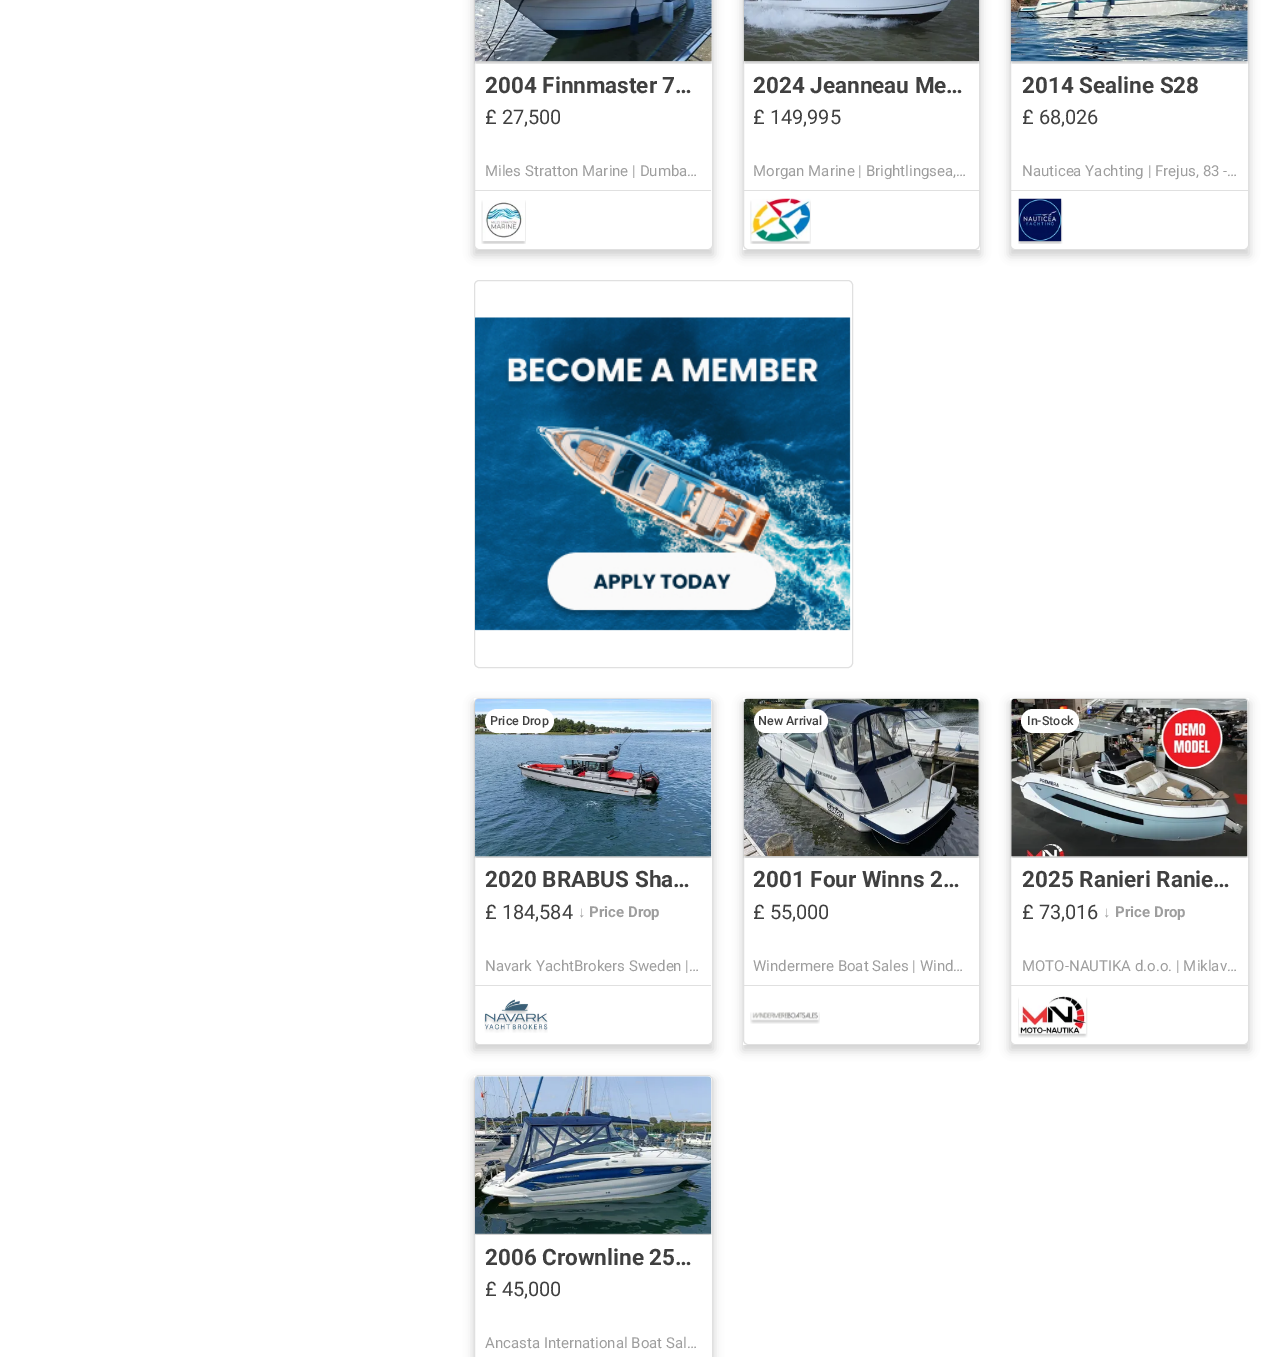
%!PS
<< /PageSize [1278 1357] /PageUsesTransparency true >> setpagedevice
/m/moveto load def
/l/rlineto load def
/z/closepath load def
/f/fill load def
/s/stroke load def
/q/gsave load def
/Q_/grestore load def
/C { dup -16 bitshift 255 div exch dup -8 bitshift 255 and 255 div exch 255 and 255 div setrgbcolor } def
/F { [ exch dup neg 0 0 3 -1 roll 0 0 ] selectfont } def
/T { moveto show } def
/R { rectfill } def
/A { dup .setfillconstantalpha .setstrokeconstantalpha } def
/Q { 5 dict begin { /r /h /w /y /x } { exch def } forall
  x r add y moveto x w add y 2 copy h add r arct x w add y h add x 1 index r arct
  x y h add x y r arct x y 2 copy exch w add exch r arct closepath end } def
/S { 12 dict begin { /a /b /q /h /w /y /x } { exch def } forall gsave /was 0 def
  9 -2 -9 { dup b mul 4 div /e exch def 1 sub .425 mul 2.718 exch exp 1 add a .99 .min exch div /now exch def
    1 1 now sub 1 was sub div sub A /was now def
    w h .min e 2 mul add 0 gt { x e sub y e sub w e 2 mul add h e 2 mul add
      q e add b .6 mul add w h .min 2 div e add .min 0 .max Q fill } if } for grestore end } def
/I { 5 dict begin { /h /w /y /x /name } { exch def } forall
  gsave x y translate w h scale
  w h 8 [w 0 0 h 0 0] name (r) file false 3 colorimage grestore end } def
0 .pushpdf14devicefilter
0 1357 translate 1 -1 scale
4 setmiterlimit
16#FFFFFF C
0 0 1278 1357 R
16#000000 C
474 -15 239 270 0 5 .2 S
16#FFFFFF C
474.5 -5.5 238 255 4.5 Q q f Q_
16#E0E0E0 C
s
(1.rgb) 474 0 238 64 I
/Roboto-Bold 22.5 F
16#404040 C
(2004 Finnmaster 7…) 485 93 T
/Roboto-Regular 20 F
(£ 27,500) 485 124 T
/Roboto-Regular 15 F
16#9E9E9E C
(Miles Stratton Marine | Dumba…) 485 176 T
16#E0E0E0 C
475 190 236 1 R
(2.rgb) 481 200 45 44 I
q
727 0 m 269 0 l 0 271 l -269 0 l z 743 -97 m 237 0 l 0 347 l -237 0 l z eoclip newpath
16#000000 C
743 -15 237 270 0 5 .2 S
Q_
743.5 -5.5 236 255 4.5 Q s
(3.rgb) 743 0 237 64 I
/Roboto-Bold 22.5 F
16#404040 C
(2024 Jeanneau Me…) 753 93 T
/Roboto-Regular 20 F
(£ 149,995) 753 124 T
/Roboto-Regular 15 F
16#9E9E9E C
(Morgan Marine | Brightlingsea,…) 753 176 T
16#E0E0E0 C
744 190 235 1 R
(4.rgb) 750 198 61 46 I
16#000000 C
1010 -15 239 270 0 5 .2 S
16#FFFFFF C
1010.5 -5.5 238 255 4.5 Q q f Q_
16#E0E0E0 C
s
(5.rgb) 1010 0 239 64 I
/Roboto-Bold 22.5 F
16#404040 C
(2014 Sealine S28) 1022 93 T
/Roboto-Regular 20 F
(£ 68,026) 1022 124 T
/Roboto-Regular 15 F
16#9E9E9E C
(Nauticea Yachting | Frejus, 83 -…) 1022 176 T
16#E0E0E0 C
1011 190 237 1 R
(6.rgb) 1018 198 45 46 I
474.5 280.5 378 387 4.5 Q s
(7.rgb) 475 317 376 314 I
16#000000 C
474 703 239 347 0 5 .2 S
16#FFFFFF C
474.5 698.5 238 346 4.5 Q q f Q_
16#E0E0E0 C
s
(8.rgb) 474 698 238 160 I
16#FFFFFF C
485 709 69 24 12 Q f
/Roboto-Medium 12.5 F
16#404040 C
(Price Drop) 490 725 T
/Roboto-Bold 22.5 F
(2020 BRABUS Sha…) 485 887 T
/Roboto-Regular 20 F
(£ 184,584) 485 919 T
/LiberationSans-Bold 15 F
16#9E9E9E C
(↓) 578 917 T
/Roboto-Bold 15 F
(Price Drop) 589 917 T
/Roboto-Regular 15 F
(Navark YachtBrokers Sweden |…) 485 971 T
16#E0E0E0 C
475 985 236 1 R
(9.rgb) 484 999 64 34 I
q
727 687 m 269 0 l 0 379 l -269 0 l z 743 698 m 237 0 l 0 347 l -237 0 l z eoclip newpath
16#000000 C
743 703 237 347 0 5 .2 S
Q_
743.5 698.5 236 346 4.5 Q s
(10.rgb) 743 698 237 160 I
16#FFFFFF C
754 709 74 24 12 Q f
/Roboto-Medium 12.5 F
16#404040 C
(New Arrival) 758 725 T
/Roboto-Bold 22.5 F
(2001 Four Winns 2…) 753 887 T
/Roboto-Regular 20 F
(£ 55,000) 753 919 T
/Roboto-Regular 15 F
16#9E9E9E C
(Windermere Boat Sales | Wind…) 753 971 T
16#E0E0E0 C
744 985 235 1 R
(11.rgb) 750 1012 70 12 I
16#000000 C
1010 703 239 347 0 5 .2 S
16#FFFFFF C
1010.5 698.5 238 346 4.5 Q q f Q_
16#E0E0E0 C
s
(12.rgb) 1010 698 239 160 I
16#FFFFFF C
1021 709 58 24 12 Q f
/Roboto-Medium 12.5 F
16#404040 C
(In-Stock) 1027 725 T
/Roboto-Bold 22.5 F
(2025 Ranieri Ranie…) 1022 887 T
/Roboto-Regular 20 F
(£ 73,016) 1022 919 T
/LiberationSans-Bold 15 F
16#9E9E9E C
(↓) 1103 917 T
/Roboto-Bold 15 F
(Price Drop) 1115 917 T
/Roboto-Regular 15 F
(MOTO-NAUTIKA d.o.o. | Miklav…) 1022 971 T
16#E0E0E0 C
1011 985 237 1 R
(13.rgb) 1018 996 70 42 I
16#000000 C
474 1080 239 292 0 5 .2 S
16#FFFFFF C
474.5 1075.5 238 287 4.5 Q q f Q_
16#E0E0E0 C
s
(14.rgb) 474 1076 238 159 I
/Roboto-Bold 22.5 F
16#404040 C
(2006 Crownline 25…) 485 1265 T
/Roboto-Regular 20 F
(£ 45,000) 485 1296 T
/Roboto-Regular 15 F
16#9E9E9E C
(Ancasta International Boat Sal…) 485 1348 T
.poppdf14devicefilter showpage
